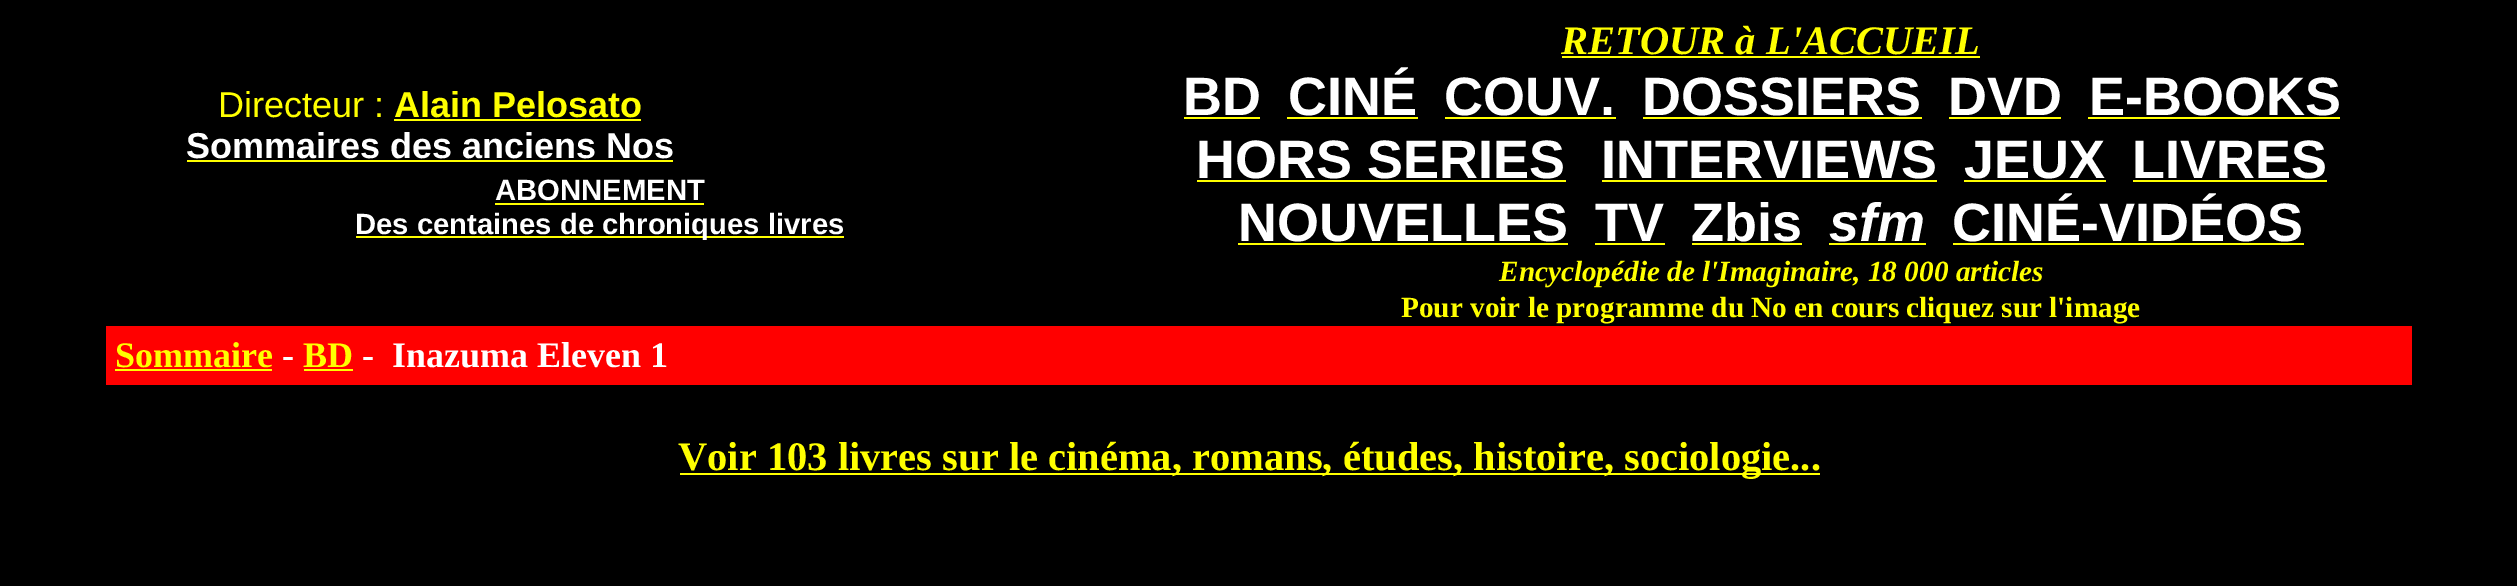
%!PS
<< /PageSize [2517 586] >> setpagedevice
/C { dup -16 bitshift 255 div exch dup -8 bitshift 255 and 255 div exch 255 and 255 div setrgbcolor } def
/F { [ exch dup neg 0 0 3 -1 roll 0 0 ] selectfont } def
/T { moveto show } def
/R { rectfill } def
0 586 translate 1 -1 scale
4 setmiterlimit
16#000000 C
0 0 2517 586 R
/LiberationSans-Regular 36 F
16#FFFF00 C
(Directeur :) 218 117 T
/LiberationSans-Bold 36 F
(Alain Pelosato) 394 117 T
394 119 247 2 R
16#FFFFFF C
(Sommaires des anciens Nos) 186 158 T
16#FFFF00 C
187 160 486 2 R
/LiberationSans-Bold 29.25 F
16#FFFFFF C
(ABONNEMENT) 495 200 T
16#FFFF00 C
495 203 209 2 R
356 236 488 2 R
16#FFFFFF C
(Des centaines de chroniques livres) 355 234 T
/LiberationSerif-BoldItalic 40.5 F
16#FFFF00 C
(RETOUR à L'ACCUEIL) 1561 54 T
1562 56 418 2 R
/LiberationSans-Bold 54 F
16#FFFFFF C
(BD) 1183 115 T
16#FFFF00 C
1184 117 76 2 R
16#FFFFFF C
(CINÉ) 1288 115 T
16#FFFF00 C
1287 117 131 2 R
16#FFFFFF C
(COUV.) 1444 115 T
16#FFFF00 C
1445 117 171 2 R
16#FFFFFF C
(DOSSIERS) 1642 115 T
16#FFFF00 C
1643 117 279 2 R
16#FFFFFF C
(DVD) 1948 115 T
16#FFFF00 C
1949 117 112 2 R
16#FFFFFF C
(E-BOOKS) 2089 115 T
16#FFFF00 C
2088 117 252 2 R
16#FFFFFF C
(HORS SERIES) 1196 178 T
16#FFFF00 C
1197 180 369 2 R
16#FFFFFF C
(INTERVIEWS) 1601 178 T
16#FFFF00 C
1602 180 335 2 R
16#FFFFFF C
(JEUX) 1964 178 T
16#FFFF00 C
1964 180 142 2 R
16#FFFFFF C
(LIVRES) 2132 178 T
16#FFFF00 C
2133 180 194 2 R
16#FFFFFF C
(NOUVELLES) 1238 241 T
16#FFFF00 C
1238 243 330 2 R
16#FFFFFF C
(TV) 1595 241 T
16#FFFF00 C
1595 243 70 2 R
16#FFFFFF C
(Zbis) 1691 241 T
16#FFFF00 C
1692 243 110 2 R
/LiberationSans-BoldItalic 54 F
16#FFFFFF C
(sfm) 1829 241 T
16#FFFF00 C
1829 243 97 2 R
/LiberationSans-Bold 54 F
16#FFFFFF C
(CINÉ-VIDÉOS) 1952 241 T
16#FFFF00 C
1953 243 351 2 R
/LiberationSerif-BoldItalic 29.25 F
(Encyclopédie de l'Imaginaire, 18 000 articles) 1499 281 T
/LiberationSerif-Bold 29.25 F
(Pour voir le programme du No en cours cliquez sur l'image) 1401 317 T
16#FF0000 C
106 326 2306 59 R
/LiberationSerif-Bold 36 F
16#FFFF00 C
(Sommaire) 115 367 T
115 369 157 2 R
16#FFFFFF C
(-) 282 367 T
16#FFFF00 C
(BD) 303 367 T
304 369 49 2 R
16#FFFFFF C
(-) 362 367 T
(Inazuma Eleven 1) 392 367 T
16#FFFF00 C
680 473 1140 2 R
/LiberationSerif-Bold 40.5 F
(Voir 103 livres sur le cinéma, romans, études, histoire, sociologie...) 678 470 T
showpage
